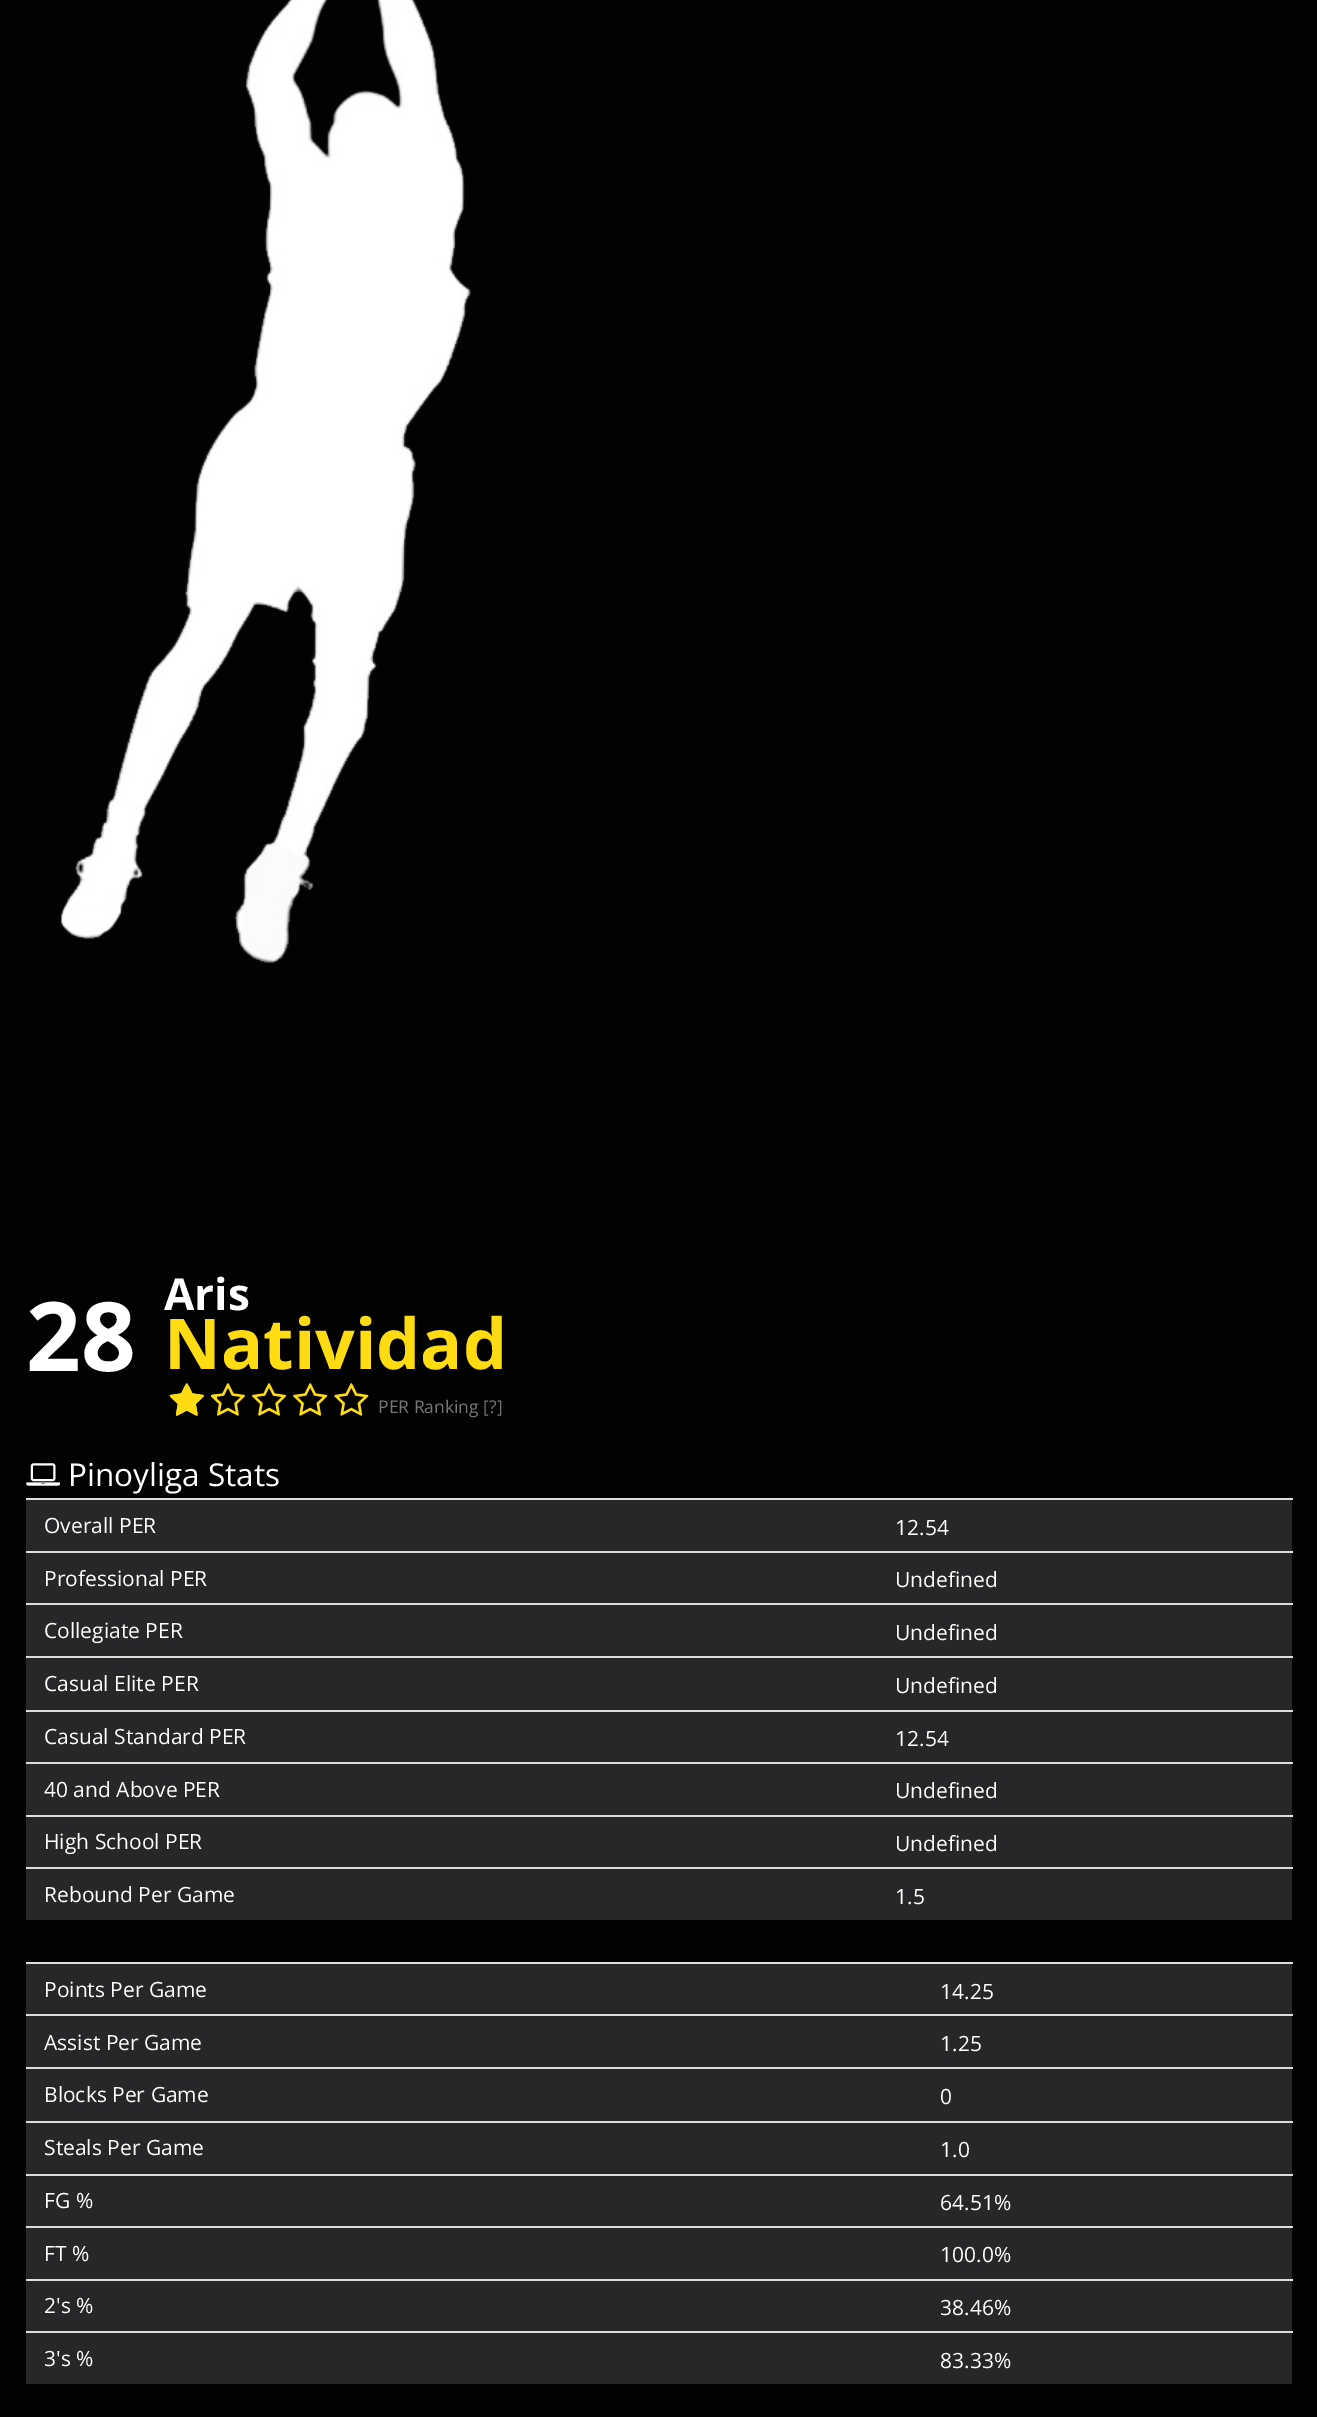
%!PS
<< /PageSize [1317 2417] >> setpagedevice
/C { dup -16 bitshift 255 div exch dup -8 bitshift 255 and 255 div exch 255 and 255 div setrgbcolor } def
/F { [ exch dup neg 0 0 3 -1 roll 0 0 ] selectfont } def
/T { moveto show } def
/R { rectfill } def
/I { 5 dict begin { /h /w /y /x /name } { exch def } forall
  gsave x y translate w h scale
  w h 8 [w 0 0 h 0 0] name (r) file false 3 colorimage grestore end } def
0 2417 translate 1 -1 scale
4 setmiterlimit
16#020203 C
0 0 1317 2417 R
(1.rgb) 60 0 411 963 I
/OpenSans-Bold 96 F
16#FFFFFF C
(28) 26 1371 T
/OpenSans-Bold 44 F
(Aris) 164 1310 T
/OpenSans-Bold 70 F
16#FFDC11 C
(Natividad) 164 1369 T
(2.rgb) 169 1383 200 33 I
(3.rgb) 169 1386 48 30 I
/OpenSans-Regular 17.5 F
16#777777 C
(PER Ranking [?]) 378 1413 T
(4.rgb) 26 1463 34 23 I
/OpenSans-Regular 31.5 F
16#FFFFFF C
(Pinoyliga Stats) 68 1486 T
16#272729 C
26 1500 1266 420 R
/OpenSans-Regular 21 F
16#FFFFFF C
(Overall PER) 44 1533 T
16#DDDDDD C
26 1498 1267 2 R
16#FFFFFF C
(12.54) 895 1535 T
(Professional PER) 44 1586 T
16#DDDDDD C
26 1551 1267 2 R
16#FFFFFF C
(Undefined) 895 1587 T
(Collegiate PER) 44 1638 T
16#DDDDDD C
26 1603 1267 2 R
16#FFFFFF C
(Undefined) 895 1640 T
(Casual Elite PER) 44 1691 T
16#DDDDDD C
26 1656 1267 2 R
16#FFFFFF C
(Undefined) 895 1693 T
(Casual Standard PER) 44 1744 T
16#DDDDDD C
26 1710 1267 2 R
16#FFFFFF C
(12.54) 895 1746 T
(40 and Above PER) 44 1797 T
16#DDDDDD C
26 1762 1267 2 R
16#FFFFFF C
(Undefined) 895 1798 T
(High School PER) 44 1849 T
16#DDDDDD C
26 1815 1267 2 R
16#FFFFFF C
(Undefined) 895 1851 T
(Rebound Per Game) 44 1902 T
16#DDDDDD C
26 1867 1267 2 R
16#FFFFFF C
(1.5) 895 1904 T
16#272729 C
26 1964 1266 420 R
16#FFFFFF C
(Points Per Game) 44 1997 T
16#DDDDDD C
26 1962 1267 2 R
16#FFFFFF C
(14.25) 940 1999 T
(Assist Per Game) 44 2050 T
16#DDDDDD C
26 2014 1267 2 R
16#FFFFFF C
(1.25) 940 2051 T
(Blocks Per Game) 44 2102 T
16#DDDDDD C
26 2067 1267 2 R
16#FFFFFF C
(0) 940 2104 T
(Steals Per Game) 44 2155 T
16#DDDDDD C
26 2121 1267 2 R
16#FFFFFF C
(1.0) 940 2157 T
(FG %) 44 2208 T
16#DDDDDD C
26 2174 1267 2 R
16#FFFFFF C
(64.51%) 940 2210 T
(FT %) 44 2261 T
16#DDDDDD C
26 2226 1267 2 R
16#FFFFFF C
(100.0%) 940 2262 T
(2's %) 44 2313 T
16#DDDDDD C
26 2279 1267 2 R
16#FFFFFF C
(38.46%) 940 2315 T
(3's %) 44 2366 T
16#DDDDDD C
26 2331 1267 2 R
16#FFFFFF C
(83.33%) 940 2368 T
showpage
